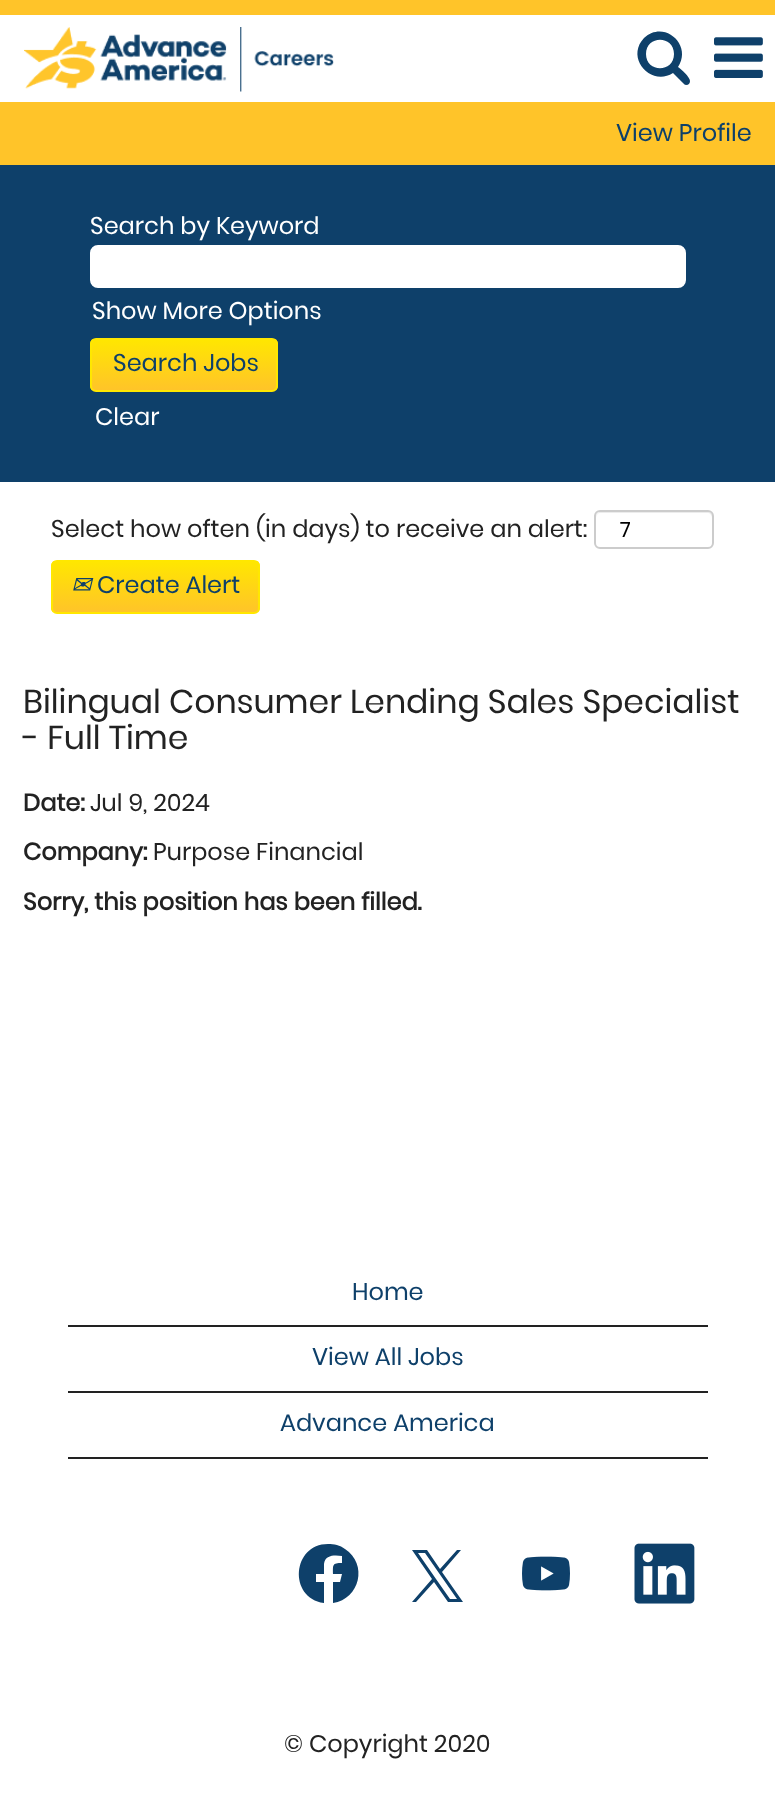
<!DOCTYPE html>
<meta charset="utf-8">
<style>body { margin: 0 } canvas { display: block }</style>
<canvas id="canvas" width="775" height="1804"></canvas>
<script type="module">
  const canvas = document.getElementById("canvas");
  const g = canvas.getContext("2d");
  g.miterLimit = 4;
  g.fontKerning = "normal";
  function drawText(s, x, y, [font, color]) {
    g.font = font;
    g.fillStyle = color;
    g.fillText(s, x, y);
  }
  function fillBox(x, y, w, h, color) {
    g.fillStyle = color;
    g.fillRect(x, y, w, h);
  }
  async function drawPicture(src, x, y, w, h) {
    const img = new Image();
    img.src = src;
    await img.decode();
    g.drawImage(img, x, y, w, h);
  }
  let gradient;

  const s1 = ["24px Poppins", "#0E406A"];
  const s2 = ["24px Poppins", "#FFFFFF"];
  const s3 = ["24px Poppins", "#222222"];
  const s4 = ["21px Poppins", "#000000"];
  const s5 = ["italic 24px DejaVu Sans", "#0E406A"];
  const s6 = ["33px Poppins", "#222222"];
  const s7 = ["bold 24px Poppins", "#222222"];

  fillBox(0, 0, 775, 1804, "#FFFFFF");
  fillBox(0, 0, 775, 15, "#FFC429");
  await drawPicture("pic1.png", 24, 27, 310, 65);
  g.fillStyle = "#0E406A";
  g.beginPath();
  g.moveTo(674, 54);
  g.bezierCurveTo(674, 73, 646, 73, 646, 54);
  g.bezierCurveTo(646, 35, 674, 35, 674, 54);
  g.closePath();
  g.moveTo(690, 81);
  g.bezierCurveTo(690, 77, 681, 69, 678, 67);
  g.bezierCurveTo(693, 45, 664, 19, 644, 38);
  g.bezierCurveTo(625, 58, 651, 87, 673, 73);
  g.lineTo(683, 83);
  g.bezierCurveTo(684, 84, 685, 85, 686, 85);
  g.bezierCurveTo(689, 85, 690, 83, 690, 81);
  g.closePath();
  g.fill();
  await drawPicture("pic2.png", 714, 37, 49, 41);
  fillBox(0, 102, 775, 63, "#FFC429");
  drawText("View Profile", 616, 141, s1);
  fillBox(0, 165, 775, 317, "#0E406A");
  drawText("Search by Keyword", 90, 234, s2);
  g.beginPath();
  g.roundRect(91.5, 246.5, 593, 40, 6.5);
  g.fill();
  g.strokeStyle = "#FFFFFF";
  g.lineWidth = 3;
  g.stroke();
  drawText("Show More Options", 92, 319, s2);
  g.save();
  g.beginPath();
  g.roundRect(90, 338, 188, 54, 6);
  g.clip();
  gradient = g.createLinearGradient(184, 339, 184, 390);
  gradient.addColorStop(0, "#FFE700");
  gradient.addColorStop(1, "#FFC429");
  g.fillStyle = gradient;
  g.fillRect(90, 339, 188, 51);
  g.restore();
  g.beginPath();
  g.roundRect(91, 339, 186, 52, 5);
  g.strokeStyle = "#FFE700";
  g.lineWidth = 2;
  g.stroke();
  drawText("Search Jobs", 113, 371, s1);
  drawText("Clear", 95, 425, s2);
  drawText("Select how often (in days) to receive an alert:", 51, 537, s3);
  g.fillStyle = "#ECECEC";
  g.beginPath();
  g.moveTo(600, 513);
  g.lineTo(708, 513);
  g.bezierCurveTo(710, 513, 712, 515, 712, 518);
  g.lineTo(712, 544);
  g.lineTo(711, 547);
  g.bezierCurveTo(712, 546, 713, 544, 713, 543);
  g.lineTo(713, 517);
  g.bezierCurveTo(713, 514, 711, 512, 708, 512);
  g.lineTo(601, 512);
  g.bezierCurveTo(598, 512, 596, 514, 596, 517);
  g.lineTo(596, 518);
  g.bezierCurveTo(596, 515, 598, 513, 600, 513);
  g.closePath();
  g.fill();
  g.beginPath();
  g.roundRect(595, 511, 118, 37, 5);
  g.strokeStyle = "#CCCCCC";
  g.stroke();
  drawText("7", 620, 537, s4);
  g.save();
  g.beginPath();
  g.roundRect(51, 560, 209, 54, 6);
  g.clip();
  gradient = g.createLinearGradient(155, 561, 155, 612);
  gradient.addColorStop(0, "#FFE700");
  gradient.addColorStop(1, "#FFC429");
  g.fillStyle = gradient;
  g.fillRect(51, 561, 209, 51);
  g.restore();
  g.beginPath();
  g.roundRect(52, 561, 207, 52, 5);
  g.strokeStyle = "#FFE700";
  g.stroke();
  drawText("✉", 71, 593, s5);
  drawText("Create Alert", 97, 593, s1);
  drawText("Bilingual Consumer Lending Sales Specialist", 23, 713, s6);
  drawText("- Full Time", 23, 749, s6);
  drawText("Date:", 23, 811, s7);
  drawText("Jul 9, 2024", 90, 811, s3);
  drawText("Company:", 23, 860, s7);
  drawText("Purpose Financial", 153, 860, s3);
  drawText("Sorry, this position has been filled.", 23, 910, s7);
  fillBox(68, 1325, 640, 2, "#222222");
  drawText("Home", 352, 1300, s1);
  fillBox(68, 1391, 640, 2, "#222222");
  drawText("View All Jobs", 312, 1365, s1);
  fillBox(68, 1457, 640, 2, "#222222");
  drawText("Advance America", 280, 1431, s1);
  g.beginPath();
  g.moveTo(328, 1544);
  g.bezierCurveTo(292, 1544, 288, 1598, 324, 1603);
  g.lineTo(324, 1582);
  g.lineTo(316, 1582);
  g.lineTo(316, 1574);
  g.lineTo(324, 1574);
  g.lineTo(324, 1564);
  g.bezierCurveTo(325, 1555, 334, 1555, 342, 1556);
  g.lineTo(342, 1563);
  g.bezierCurveTo(332, 1563, 333, 1565, 333, 1574);
  g.lineTo(342, 1574);
  g.lineTo(340, 1582);
  g.lineTo(333, 1582);
  g.lineTo(333, 1603);
  g.bezierCurveTo(360, 1599, 368, 1564, 345, 1549);
  g.bezierCurveTo(340, 1545, 334, 1544, 328, 1544);
  g.closePath();
  g.fill();
  g.beginPath();
  g.moveTo(442, 1572);
  g.lineTo(461, 1550);
  g.lineTo(457, 1550);
  g.lineTo(440, 1569);
  g.lineTo(427, 1550);
  g.lineTo(412, 1550);
  g.lineTo(432, 1579);
  g.lineTo(412, 1602);
  g.lineTo(416, 1602);
  g.lineTo(434, 1582);
  g.lineTo(448, 1602);
  g.lineTo(463, 1602);
  g.closePath();
  g.moveTo(436, 1579);
  g.lineTo(418, 1553);
  g.lineTo(425, 1553);
  g.lineTo(457, 1599);
  g.lineTo(450, 1599);
  g.closePath();
  g.fill();
  await drawPicture("pic3.png", 522, 1556, 48, 35);
  await drawPicture("pic4.png", 634, 1543, 61, 61);
  drawText("© Copyright 2020", 284, 1752, s3);
</script>
